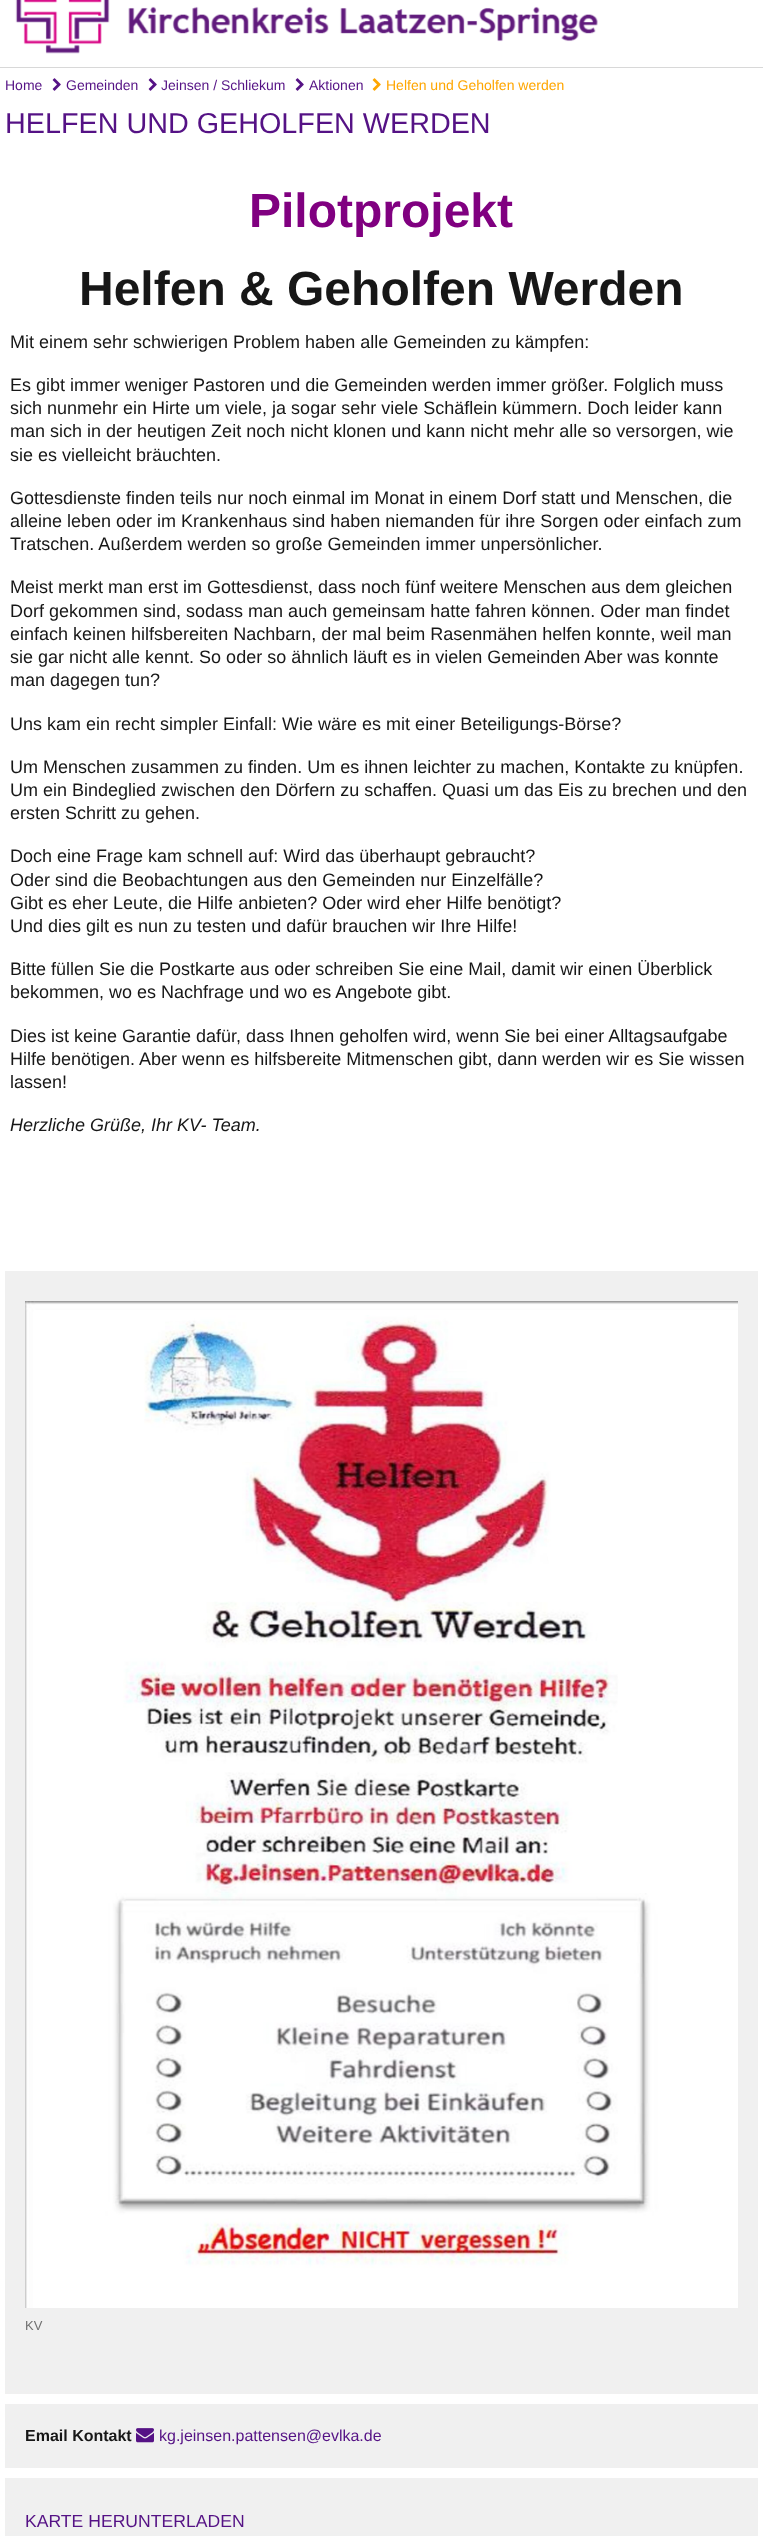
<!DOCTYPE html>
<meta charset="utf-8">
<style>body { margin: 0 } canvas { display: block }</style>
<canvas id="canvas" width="763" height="2536"></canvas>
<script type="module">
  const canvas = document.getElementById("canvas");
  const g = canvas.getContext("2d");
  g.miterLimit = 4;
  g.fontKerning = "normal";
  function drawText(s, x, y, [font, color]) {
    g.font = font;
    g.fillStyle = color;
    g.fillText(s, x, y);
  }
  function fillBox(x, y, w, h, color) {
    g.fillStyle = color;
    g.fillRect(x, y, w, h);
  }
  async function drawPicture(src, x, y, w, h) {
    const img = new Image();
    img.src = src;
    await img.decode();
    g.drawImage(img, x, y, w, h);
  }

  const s1 = ["14px Liberation Sans", "#551285"];
  const s2 = ["14px Liberation Sans", "#FFA600"];
  const s3 = ["28.75px Liberation Sans", "#551285"];
  const s4 = ["bold 48px Liberation Sans", "#800080"];
  const s5 = ["bold 48px Liberation Sans", "#171717"];
  const s6 = ["18px Liberation Sans", "#171717"];
  const s7 = ["italic 18px Liberation Sans", "#171717"];
  const s8 = ["13px Liberation Sans", "#717171"];
  const s9 = ["bold 16px Liberation Sans", "#171717"];
  const s10 = ["16px Liberation Sans", "#551285"];
  const s11 = ["17.6px Liberation Sans", "#551285"];

  fillBox(0, 0, 763, 2536, "#FFFFFF");
  fillBox(0, 67, 763, 1, "#D8D8D8");
  await drawPicture("pic1.png", 15, 0, 583, 54);
  drawText("Home", 5, 90, s1);
  await drawPicture("pic2.png", 52, 78, 9, 13);
  drawText("Gemeinden", 66, 90, s1);
  await drawPicture("pic2.png", 148, 78, 9, 13);
  drawText("Jeinsen / Schliekum", 161, 90, s1);
  await drawPicture("pic2.png", 295, 78, 9, 13);
  drawText("Aktionen", 309, 90, s1);
  await drawPicture("pic3.png", 372, 78, 9, 13);
  drawText("Helfen und Geholfen werden", 386, 90, s2);
  drawText("HELFEN UND GEHOLFEN WERDEN", 5, 133, s3);
  drawText("Pilotprojekt", 249, 227, s4);
  drawText("Helfen & Geholfen Werden", 79, 305, s5);
  drawText("Mit einem sehr schwierigen Problem haben alle Gemeinden zu kämpfen:", 10, 348, s6);
  drawText("Es gibt immer weniger Pastoren und die Gemeinden werden immer größer. Folglich muss", 10, 391, s6);
  drawText("sich nunmehr ein Hirte um viele, ja sogar sehr viele Schäflein kümmern. Doch leider kann", 10, 414, s6);
  drawText("man sich in der heutigen Zeit noch nicht klonen und kann nicht mehr alle so versorgen, wie", 10, 437, s6);
  drawText("sie es vielleicht bräuchten.", 10, 461, s6);
  drawText("Gottesdienste finden teils nur noch einmal im Monat in einem Dorf statt und Menschen, die", 10, 504, s6);
  drawText("alleine leben oder im Krankenhaus sind haben niemanden für ihre Sorgen oder einfach zum", 10, 527, s6);
  drawText("Tratschen. Außerdem werden so große Gemeinden immer unpersönlicher.", 10, 550, s6);
  drawText("Meist merkt man erst im Gottesdienst, dass noch fünf weitere Menschen aus dem gleichen", 10, 593, s6);
  drawText("Dorf gekommen sind, sodass man auch gemeinsam hatte fahren können. Oder man ﬁndet", 10, 617, s6);
  drawText("einfach keinen hilfsbereiten Nachbarn, der mal beim Rasenmähen helfen konnte, weil man", 10, 640, s6);
  drawText("sie gar nicht alle kennt. So oder so ähnlich läuft es in vielen Gemeinden Aber was konnte", 10, 663, s6);
  drawText("man dagegen tun?", 10, 686, s6);
  drawText("Uns kam ein recht simpler Einfall: Wie wäre es mit einer Beteiligungs-Börse?", 10, 730, s6);
  drawText("Um Menschen zusammen zu ﬁnden. Um es ihnen leichter zu machen, Kontakte zu knüpfen.", 10, 773, s6);
  drawText("Um ein Bindeglied zwischen den Dörfern zu schaffen. Quasi um das Eis zu brechen und den", 10, 796, s6);
  drawText("ersten Schritt zu gehen.", 10, 819, s6);
  drawText("Doch eine Frage kam schnell auf: Wird das überhaupt gebraucht?", 10, 862, s6);
  drawText("Oder sind die Beobachtungen aus den Gemeinden nur Einzelfälle?", 10, 886, s6);
  drawText("Gibt es eher Leute, die Hilfe anbieten? Oder wird eher Hilfe benötigt?", 10, 909, s6);
  drawText("Und dies gilt es nun zu testen und dafür brauchen wir Ihre Hilfe!", 10, 932, s6);
  drawText("Bitte füllen Sie die Postkarte aus oder schreiben Sie eine Mail, damit wir einen Überblick", 10, 975, s6);
  drawText("bekommen, wo es Nachfrage und wo es Angebote gibt.", 10, 998, s6);
  drawText("Dies ist keine Garantie dafür, dass Ihnen geholfen wird, wenn Sie bei einer Alltagsaufgabe", 10, 1042, s6);
  drawText("Hilfe benötigen. Aber wenn es hilfsbereite Mitmenschen gibt, dann werden wir es Sie wissen", 10, 1065, s6);
  drawText("lassen!", 10, 1088, s6);
  drawText("Herzliche Grüße, Ihr KV- Team.", 10, 1131, s7);
  fillBox(5, 1271, 753, 1123, "#F0F0F0");
  await drawPicture("pic4.png", 25, 1301, 713, 1007);
  drawText("KV", 25, 2330, s8);
  fillBox(5, 2404, 753, 64, "#F0F0F0");
  drawText("Email Kontakt", 25, 2441, s9);
  await drawPicture("pic5.png", 136, 2428, 18, 15);
  drawText("kg.jeinsen.pattensen@evlka.de", 159, 2441, s10);
  fillBox(5, 2478, 753, 58, "#F0F0F0");
  drawText("KARTE HERUNTERLADEN", 25, 2527, s11);
</script>
